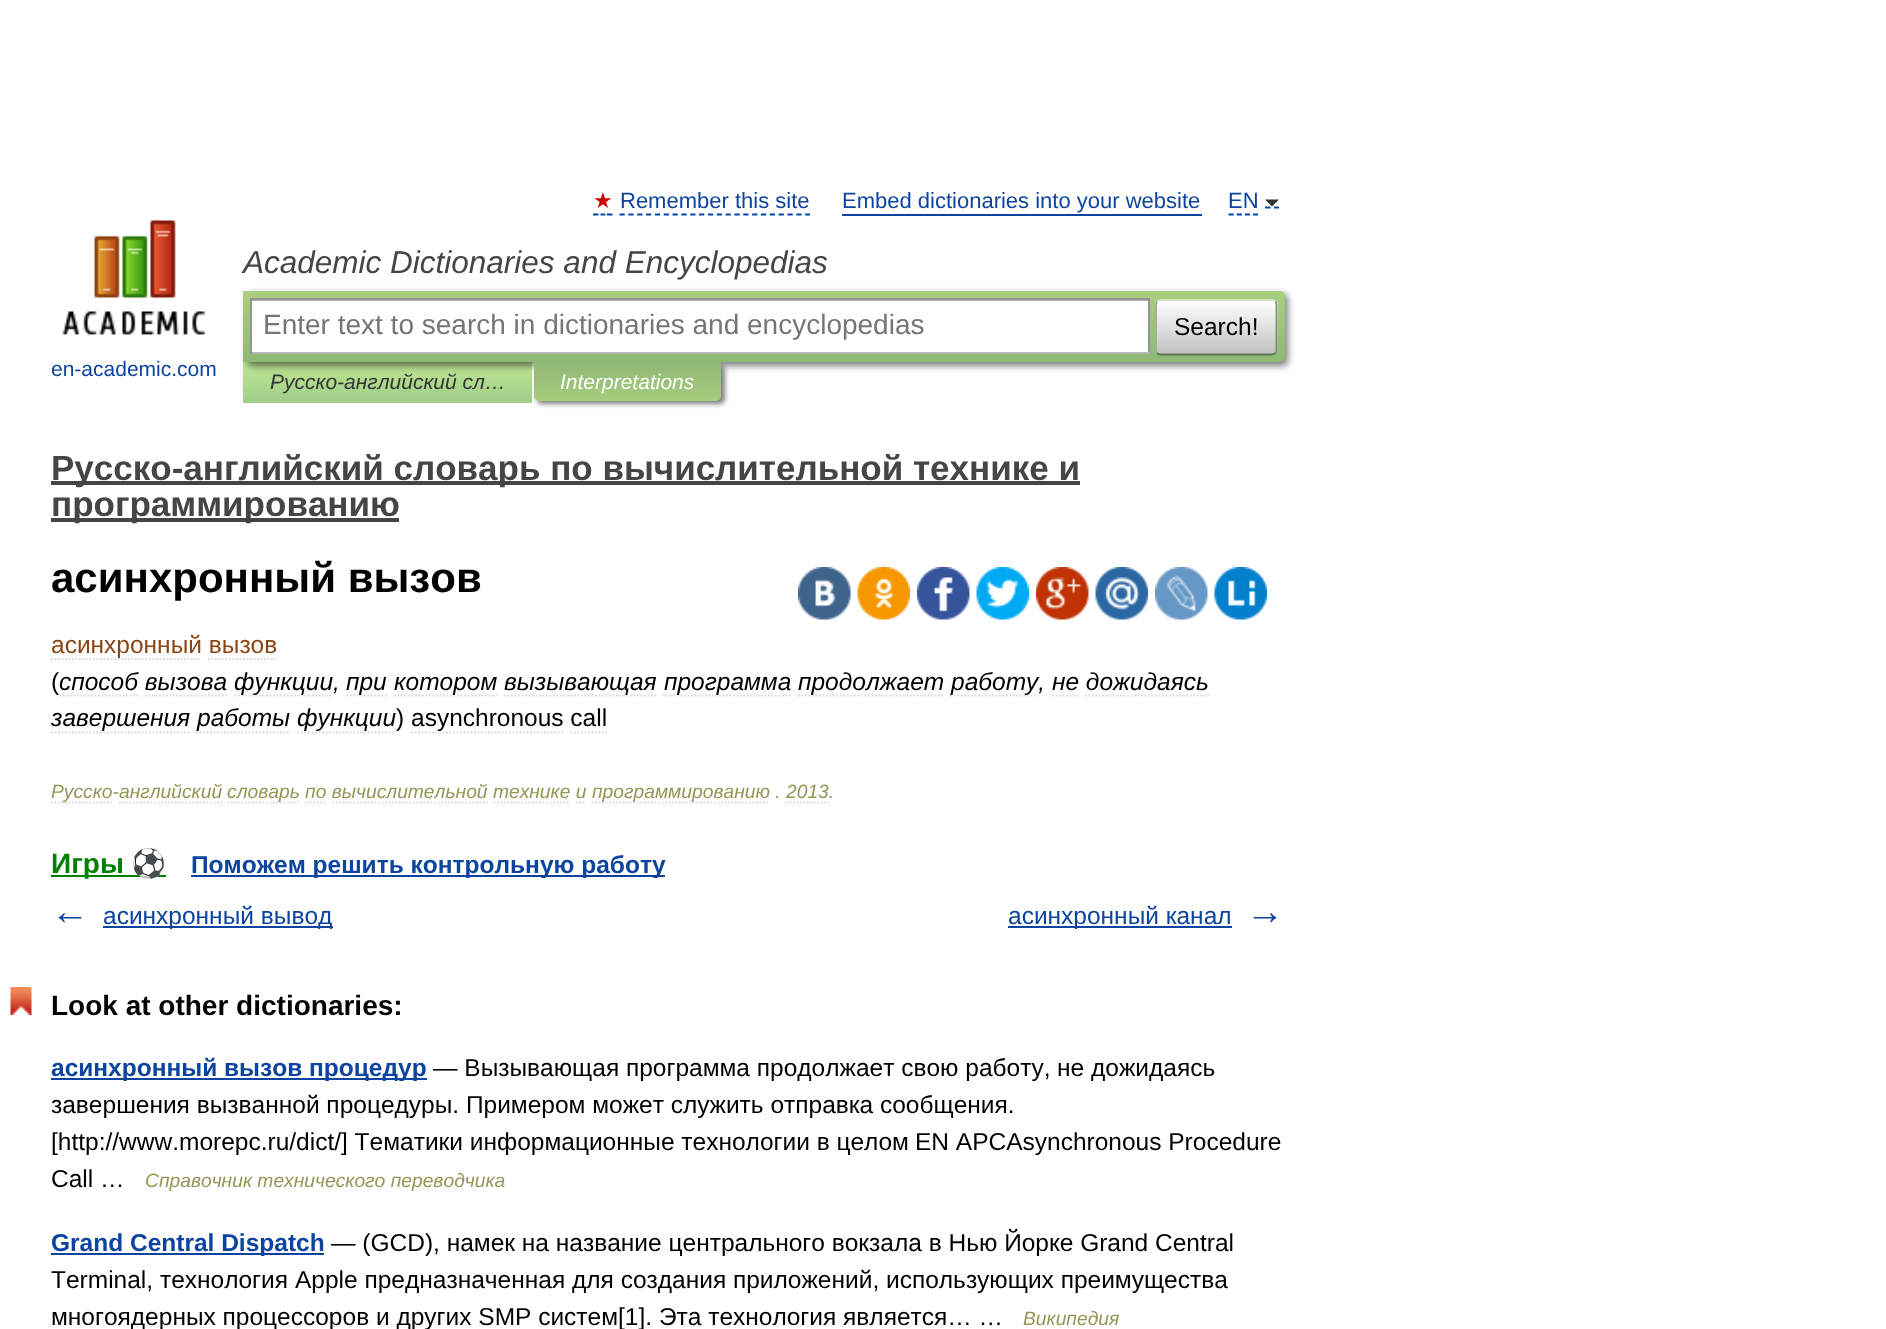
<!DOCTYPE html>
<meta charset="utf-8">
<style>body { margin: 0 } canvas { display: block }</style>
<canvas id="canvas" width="1886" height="1329"></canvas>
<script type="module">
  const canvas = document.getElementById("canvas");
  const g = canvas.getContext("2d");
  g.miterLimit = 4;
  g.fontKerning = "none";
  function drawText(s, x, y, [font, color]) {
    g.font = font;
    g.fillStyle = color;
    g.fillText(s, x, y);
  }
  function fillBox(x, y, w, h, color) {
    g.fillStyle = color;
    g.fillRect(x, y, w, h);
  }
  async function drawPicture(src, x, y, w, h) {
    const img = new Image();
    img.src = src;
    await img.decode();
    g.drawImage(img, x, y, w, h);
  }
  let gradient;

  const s1 = ["22px DejaVu Sans", "#CC0000"];
  const s2 = ["22px Liberation Sans", "#0D44A0"];
  const s3 = ["italic 31.5px Liberation Sans", "#454545"];
  const s4 = ["28px Liberation Sans", "#757575"];
  const s5 = ["24.5px Liberation Sans", "#000000"];
  const s6 = ["21px Liberation Sans", "#0D44A0"];
  const s7 = ["italic 21px Liberation Sans", "#353535"];
  const s8 = ["italic 21px Liberation Sans", "#FFFFFF"];
  const s9 = ["bold 35px Liberation Sans", "#454545"];
  const s10 = ["bold 42px Liberation Sans", "#000000"];
  const s11 = ["24.5px Liberation Sans", "#8B4513"];
  const s12 = ["italic 24.5px Liberation Sans", "#000000"];
  const s13 = ["italic 19.25px Liberation Sans", "#939756"];
  const s14 = ["bold 28px Liberation Sans", "#008000"];
  const s15 = ["bold 28px Noto Color Emoji", "#008000"];
  const s16 = ["bold 24.5px Liberation Sans", "#0D44A0"];
  const s17 = ["bold 38px Liberation Sans", "#0D44A0"];
  const s18 = ["24.5px Liberation Sans", "#0D44A0"];
  const s19 = ["bold 28px Liberation Sans", "#000000"];

  fillBox(0, 0, 1886, 1329, "#FFFFFF");
  drawText("★", 593, 208, s1);
  g.beginPath();
  g.moveTo(593, 214.5);
  g.lineTo(598.5, 214.5);
  g.moveTo(600.5, 214.5);
  g.lineTo(605.5, 214.5);
  g.moveTo(607, 214.5);
  g.lineTo(612.5, 214.5);
  g.strokeStyle = "#0044AA";
  g.lineWidth = 1.8;
  g.stroke();
  drawText("Remember this site", 620, 208, s2);
  g.beginPath();
  g.moveTo(619.5, 214.5);
  g.lineTo(810, 214.5);
  g.setLineDash([5.25, 3.59]);
  g.stroke();
  drawText("Embed dictionaries into your website", 842, 208, s2);
  fillBox(842, 214, 360, 2, "#0D44A0");
  g.beginPath();
  g.moveTo(1228.5, 214.5);
  g.lineTo(1258, 214.5);
  g.setLineDash([5.25, 2.92]);
  g.stroke();
  g.beginPath();
  g.moveTo(1265, 207.5);
  g.lineTo(1270.5, 207.5);
  g.moveTo(1274, 207.5);
  g.lineTo(1279, 207.5);
  g.setLineDash([]);
  g.stroke();
  drawText("EN", 1228, 208, s2);
  g.fillStyle = "#333333";
  g.beginPath();
  g.moveTo(1265, 199.5);
  g.lineTo(1279, 199.5);
  g.lineTo(1272, 206.5);
  g.closePath();
  g.fill();
  drawText("Academic Dictionaries and Encyclopedias", 243, 273, s3);
  gradient = g.createLinearGradient(388, 362, 388, 403);
  gradient.addColorStop(0, "#BDE693");
  gradient.addColorStop(1, "#A0CE8A");
  g.fillStyle = gradient;
  g.fillRect(243, 362, 289, 41);
  g.fillStyle = "rgba(0, 0, 0, 0.5)";
  g.filter = "blur(3.5px)";
  g.beginPath();
  g.roundRect(247, 294, 1041, 72, 5);
  g.fill();
  g.filter = "none";
  gradient = g.createLinearGradient(764, 290, 764, 362);
  gradient.addColorStop(0, "#ABCF7E");
  gradient.addColorStop(1, "#8EB874");
  g.fillStyle = gradient;
  g.beginPath();
  g.roundRect(243, 291, 1042, 71, [0, 5, 5, 0]);
  g.fill();
  fillBox(252, 301, 896, 51, "#FFFFFF");
  fillBox(252, 300, 896, 1, "#B3B3B3");
  fillBox(250, 298, 900, 2, "#949494");
  fillBox(1148, 298, 2, 56, "#949494");
  fillBox(250, 352, 900, 2, "#B4B4B4");
  fillBox(250, 298, 2, 56, "#949494");
  drawText("Enter text to search in dictionaries and encyclopedias", 263, 334, s4);
  g.save();
  g.beginPath();
  g.roundRect(1155, 299, 123, 56, 5);
  g.clip();
  gradient = g.createLinearGradient(1216, 249, 1216, 301);
  gradient.addColorStop(0, "#FFFFFF");
  gradient.addColorStop(1, "#C1C1C1");
  g.fillStyle = gradient;
  g.fillRect(1155, 299, 123, 2);
  gradient = g.createLinearGradient(1216, 301, 1216, 354);
  gradient.addColorStop(0, "#FFFFFF");
  gradient.addColorStop(1, "#C1C1C1");
  g.fillStyle = gradient;
  g.fillRect(1155, 301, 123, 53);
  g.restore();
  g.beginPath();
  g.moveTo(1157, 301.5);
  g.bezierCurveTo(1158, 300.5, 1159, 300, 1160, 300);
  g.lineTo(1272, 300);
  g.bezierCurveTo(1273.5, 300, 1274.5, 300.5, 1275.5, 301.5);
  g.strokeStyle = "#D1E4BC";
  g.stroke();
  g.beginPath();
  g.moveTo(1275.5, 301.5);
  g.bezierCurveTo(1276, 302, 1276.5, 303.5, 1276.5, 304.5);
  g.lineTo(1276.5, 350);
  g.bezierCurveTo(1276.5, 351, 1276, 352.5, 1275.5, 353);
  g.strokeStyle = "#7A8E69";
  g.stroke();
  g.beginPath();
  g.moveTo(1275.5, 353);
  g.bezierCurveTo(1274.5, 354, 1273.5, 354.5, 1272, 354.5);
  g.lineTo(1160, 354.5);
  g.bezierCurveTo(1159, 354.5, 1158, 354, 1157, 353);
  g.strokeStyle = "#5D7250";
  g.stroke();
  g.beginPath();
  g.moveTo(1157, 353);
  g.bezierCurveTo(1156.5, 352.5, 1156, 351, 1156, 350);
  g.lineTo(1156, 304.5);
  g.bezierCurveTo(1156, 303.5, 1156.5, 302, 1157, 301.5);
  g.strokeStyle = "#9AAE89";
  g.stroke();
  drawText("Search!", 1174, 335, s5);
  await drawPicture("pic1.png", 62, 220, 144, 115);
  drawText("en-academic.com", 51, 376, s6);
  drawText("Русско-английский сл…", 270, 389, s7);
  g.fillStyle = "rgba(0, 0, 0, 0.5)";
  g.filter = "blur(2.5px)";
  g.beginPath();
  g.roundRect(537, 366, 188, 38, 5);
  g.fill();
  g.filter = "none";
  gradient = g.createLinearGradient(627, 362, 627, 401);
  gradient.addColorStop(0, "#8FB875");
  gradient.addColorStop(1, "#A7CC7D");
  g.fillStyle = gradient;
  g.beginPath();
  g.roundRect(534, 362, 187, 39, [0, 0, 5, 5]);
  g.fill();
  drawText("Interpretations", 560, 389, s8);
  fillBox(51, 481, 1029, 4, "#454545");
  drawText("Русско-английский словарь по вычислительной технике и", 51, 480, s9);
  fillBox(51, 518, 348, 4, "#454545");
  drawText("программированию", 51, 516, s9);
  drawText("асинхронный вызов", 51, 592, s10);
  await drawPicture("pic2.png", 798, 567, 53, 53);
  await drawPicture("pic3.png", 857, 567, 53, 53);
  await drawPicture("pic4.png", 917, 567, 53, 53);
  await drawPicture("pic5.png", 976, 567, 53, 53);
  await drawPicture("pic6.png", 1036, 567, 53, 53);
  await drawPicture("pic7.png", 1095, 567, 53, 53);
  await drawPicture("pic8.png", 1155, 567, 53, 53);
  await drawPicture("pic9.png", 1214, 567, 53, 53);
  g.beginPath();
  g.moveTo(51, 659);
  g.lineTo(201, 659);
  g.strokeStyle = "#D9D9D9";
  g.setLineDash([1.75, 1.75]);
  g.stroke();
  drawText("асинхронный вызов", 51, 653, s11);
  g.beginPath();
  g.moveTo(208, 659);
  g.lineTo(276.5, 659);
  g.stroke();
  drawText("(", 51, 690, s5);
  g.beginPath();
  g.moveTo(59.5, 695.5);
  g.lineTo(138, 695.5);
  g.stroke();
  drawText("способ вызова", 59, 690, s12);
  g.beginPath();
  g.moveTo(145, 695.5);
  g.lineTo(227.5, 695.5);
  g.stroke();
  g.beginPath();
  g.moveTo(234.5, 695.5);
  g.lineTo(332.5, 695.5);
  g.stroke();
  drawText("функции,", 234, 690, s12);
  g.beginPath();
  g.moveTo(346.5, 695.5);
  g.lineTo(387, 695.5);
  g.stroke();
  drawText("при", 346, 690, s12);
  g.beginPath();
  g.moveTo(394, 695.5);
  g.lineTo(497, 695.5);
  g.stroke();
  drawText("котором", 394, 690, s12);
  g.beginPath();
  g.moveTo(504, 695.5);
  g.lineTo(656, 695.5);
  g.stroke();
  drawText("вызывающая", 504, 690, s12);
  g.beginPath();
  g.moveTo(663, 695.5);
  g.lineTo(791, 695.5);
  g.stroke();
  drawText("программа", 664, 690, s12);
  g.beginPath();
  g.moveTo(798, 695.5);
  g.lineTo(943, 695.5);
  g.stroke();
  drawText("продолжает", 798, 690, s12);
  g.beginPath();
  g.moveTo(950, 695.5);
  g.lineTo(1038, 695.5);
  g.stroke();
  drawText("работу, не дожидаясь", 951, 690, s12);
  g.beginPath();
  g.moveTo(1052, 695.5);
  g.lineTo(1078, 695.5);
  g.stroke();
  g.beginPath();
  g.moveTo(1085, 695.5);
  g.lineTo(1209, 695.5);
  g.stroke();
  g.beginPath();
  g.moveTo(51, 732.5);
  g.lineTo(191, 732.5);
  g.stroke();
  drawText("завершения", 51, 726, s12);
  g.beginPath();
  g.moveTo(196, 732.5);
  g.lineTo(290.5, 732.5);
  g.stroke();
  drawText("работы", 197, 726, s12);
  g.beginPath();
  g.moveTo(297.5, 732.5);
  g.lineTo(395.5, 732.5);
  g.stroke();
  drawText("функции", 297, 726, s12);
  drawText(")", 396, 726, s5);
  g.beginPath();
  g.moveTo(411, 732.5);
  g.lineTo(563.5, 732.5);
  g.stroke();
  drawText("asynchronous call", 411, 726, s5);
  g.beginPath();
  g.moveTo(570.5, 732.5);
  g.lineTo(607, 732.5);
  g.stroke();
  g.beginPath();
  g.moveTo(51, 802.5);
  g.lineTo(112, 802.5);
  g.stroke();
  drawText("Русско-английский", 51, 798, s13);
  g.beginPath();
  g.moveTo(119, 802.5);
  g.lineTo(222, 802.5);
  g.stroke();
  g.beginPath();
  g.moveTo(227.5, 802.5);
  g.lineTo(299, 802.5);
  g.stroke();
  drawText("словарь по вычислительной технике и", 227, 798, s13);
  g.beginPath();
  g.moveTo(306, 802.5);
  g.lineTo(327, 802.5);
  g.stroke();
  g.beginPath();
  g.moveTo(332.5, 802.5);
  g.lineTo(488, 802.5);
  g.stroke();
  g.beginPath();
  g.moveTo(493.5, 802.5);
  g.lineTo(570.5, 802.5);
  g.stroke();
  g.beginPath();
  g.moveTo(576, 802.5);
  g.lineTo(577.5, 802.5);
  g.moveTo(579, 802.5);
  g.lineTo(581, 802.5);
  g.moveTo(582.5, 802.5);
  g.lineTo(584.5, 802.5);
  g.setLineDash([]);
  g.stroke();
  g.beginPath();
  g.moveTo(591.5, 802.5);
  g.lineTo(770, 802.5);
  g.setLineDash([1.75, 1.75]);
  g.stroke();
  drawText("программированию . 2013.", 592, 798, s13);
  g.beginPath();
  g.moveTo(786, 802.5);
  g.lineTo(829.5, 802.5);
  g.stroke();
  fillBox(51, 875, 115, 2, "#008000");
  drawText("Игры", 51, 873, s14);
  drawText("⚽", 131, 873, s15);
  fillBox(191, 875, 474, 2, "#0D44A0");
  drawText("Поможем решить контрольную работу", 191, 873, s16);
  drawText("←", 51, 924, s17);
  fillBox(103, 926, 230, 2, "#0D44A0");
  drawText("асинхронный вывод", 103, 924, s18);
  fillBox(1008, 926, 224, 2, "#0D44A0");
  drawText("асинхронный канал", 1008, 924, s18);
  drawText("→", 1246, 924, s17);
  await drawPicture("pic10.png", 10, 987, 22, 28);
  drawText("Look at other dictionaries:", 51, 1015, s19);
  fillBox(51, 1078, 376, 2, "#0D44A0");
  drawText("асинхронный вызов процедур", 51, 1076, s16);
  drawText("— Вызывающая программа продолжает свою работу,", 433, 1076, s5);
  drawText("не дожидаясь", 1057, 1076, s5);
  drawText("завершения вызванной процедуры. Примером может служить отправка сообщения.", 51, 1113, s5);
  drawText("[http://www.morepc.ru/dict/] Тематики информационные технологии в целом", 51, 1150, s5);
  drawText("EN APCAsynchronous Procedure", 915, 1150, s5);
  drawText("Call …", 51, 1187, s5);
  drawText("Справочник технического переводчика", 145, 1187, s13);
  fillBox(51, 1253, 273, 2, "#0D44A0");
  drawText("Grand Central Dispatch", 51, 1251, s16);
  drawText("— (GCD), намек на название центрального вокзала в Нью Йорке Grand Central", 331, 1251, s5);
  drawText("Terminal, технология", 51, 1288, s5);
  drawText("Apple предназначенная для создания приложений, использующих преимущества", 295, 1288, s5);
  drawText("многоядерных процессоров и других SMP систем[1]. Эта технология является… …", 51, 1325, s5);
  drawText("Википедия", 1023, 1325, s13);
</script>
